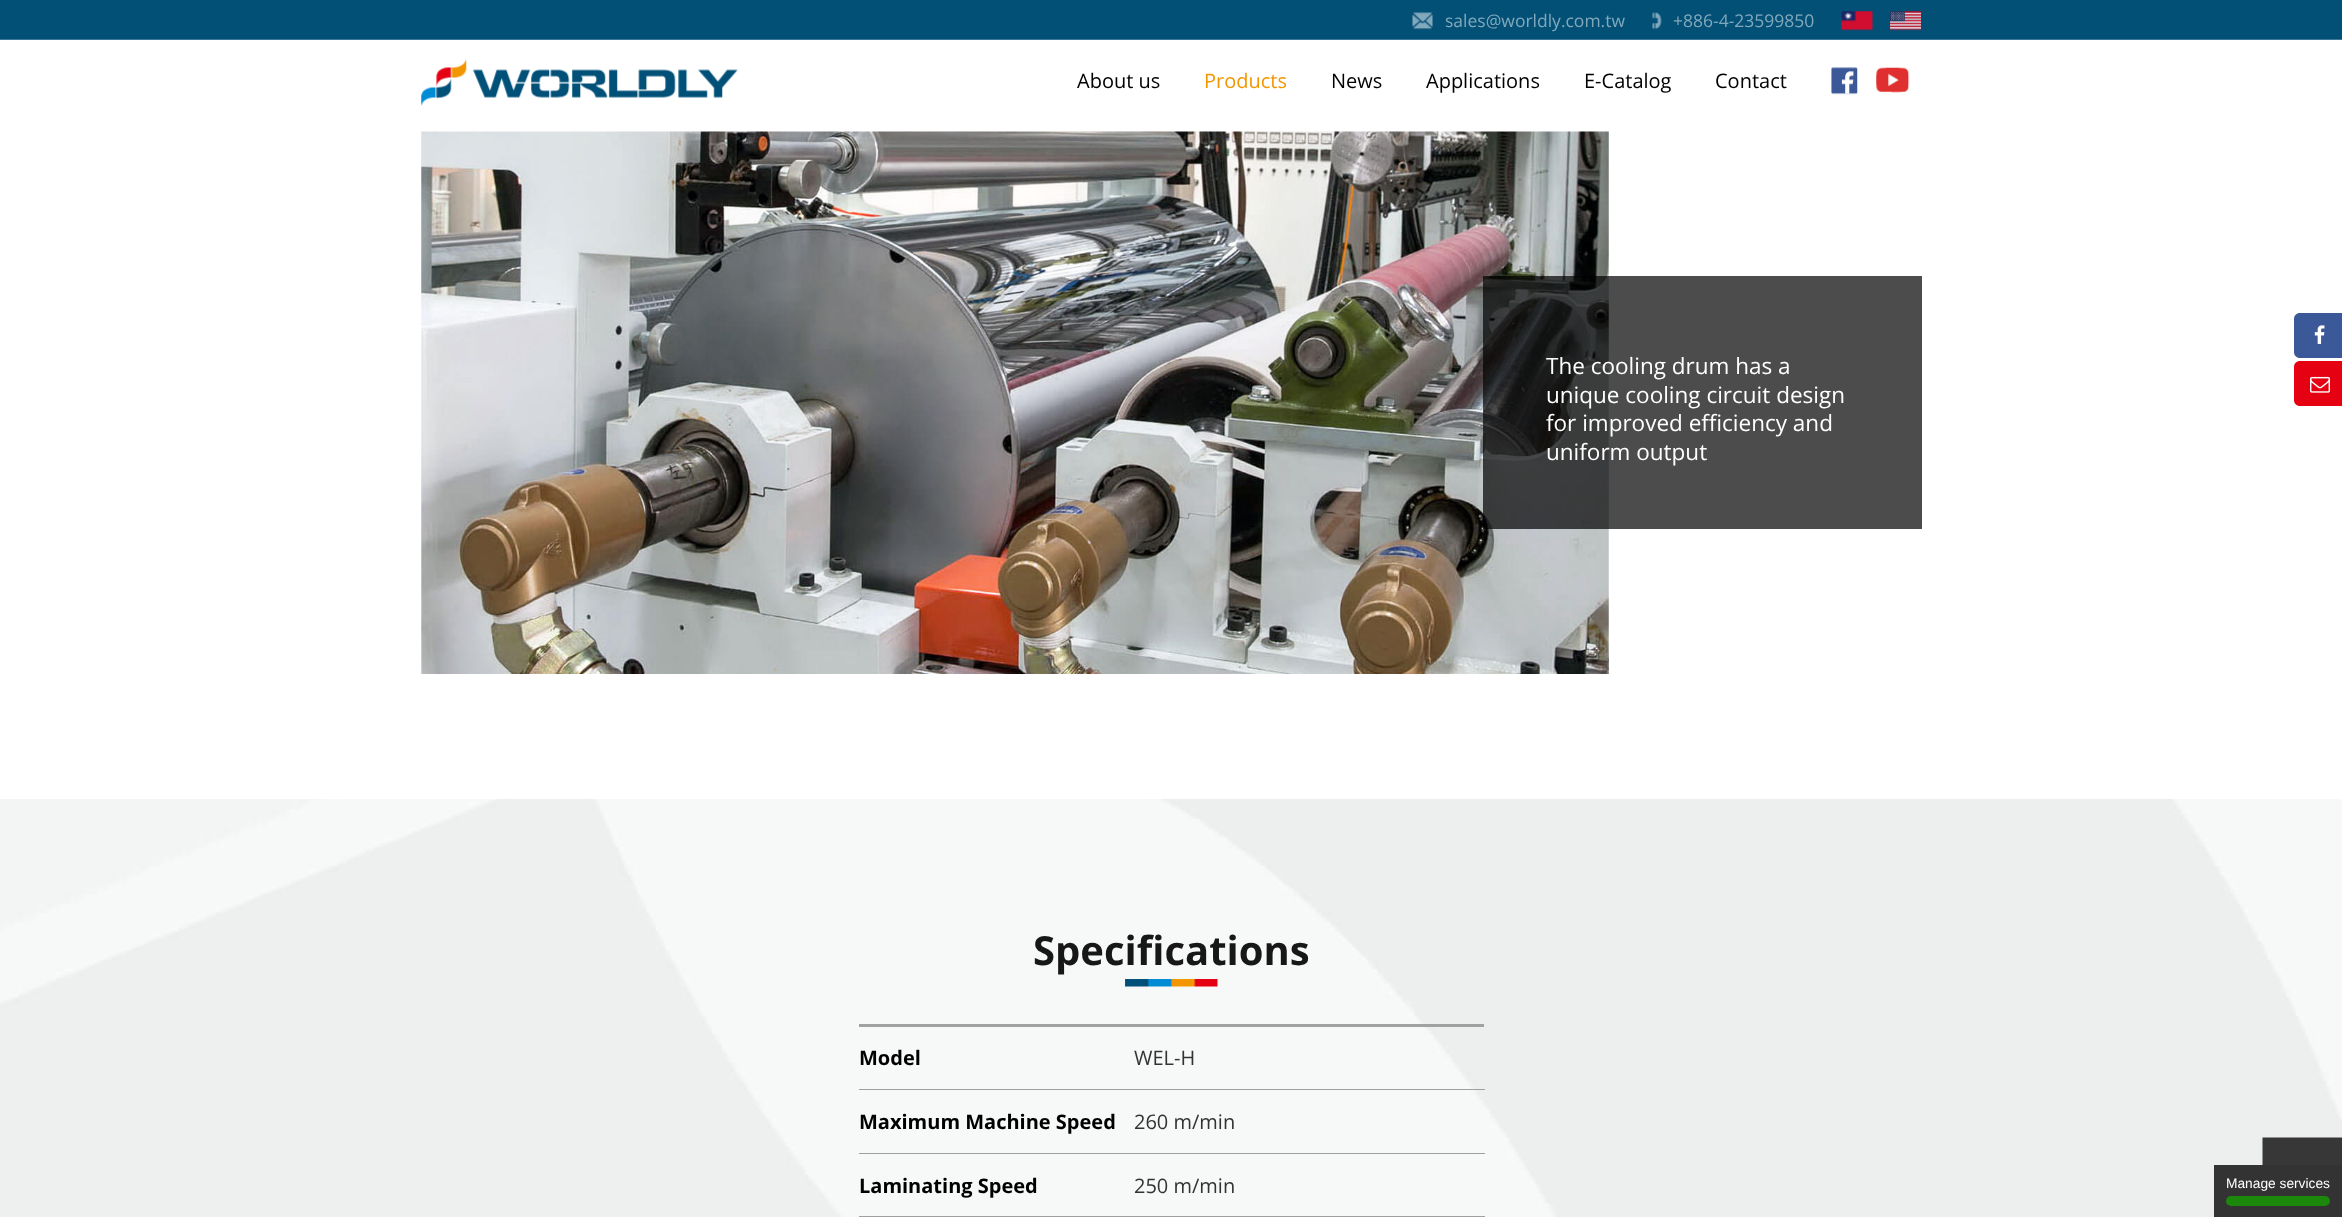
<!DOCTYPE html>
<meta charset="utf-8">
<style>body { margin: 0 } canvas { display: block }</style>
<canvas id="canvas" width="2342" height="1217"></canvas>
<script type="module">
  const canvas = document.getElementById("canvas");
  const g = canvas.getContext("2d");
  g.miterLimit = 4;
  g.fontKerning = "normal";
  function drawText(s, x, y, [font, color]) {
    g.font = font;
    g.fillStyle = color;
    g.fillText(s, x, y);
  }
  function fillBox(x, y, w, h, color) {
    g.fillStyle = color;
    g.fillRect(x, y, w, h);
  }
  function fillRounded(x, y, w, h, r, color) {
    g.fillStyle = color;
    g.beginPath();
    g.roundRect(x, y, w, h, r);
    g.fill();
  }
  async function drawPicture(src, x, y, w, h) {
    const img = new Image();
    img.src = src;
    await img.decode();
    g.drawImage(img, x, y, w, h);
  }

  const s1 = ["17.5px Open Sans", "#81A8BB"];
  const s2 = ["20px Open Sans", "#000000"];
  const s3 = ["20px Open Sans", "#F29600"];
  const s4 = ["22.5px Open Sans", "#FFFFFF"];
  const s5 = ["bold 40px Open Sans", "#171717"];
  const s6 = ["bold 20px Open Sans", "#000000"];
  const s7 = ["20px Open Sans", "#333333"];
  const s8 = ["13.75px Liberation Sans", "#FFFFFF"];

  fillBox(0, 0, 2342, 1217, "#FFFFFF");
  fillBox(0, 0, 2342, 39, "#035077");
  fillBox(0, 39, 2342, 1, "#3D7896");
  await drawPicture("pic1.png", 1412, 12, 21, 18);
  drawText("sales@worldly.com.tw", 1445, 27, s1);
  await drawPicture("pic2.png", 1652, 12, 10, 18);
  drawText("+886-4-23599850", 1673, 27, s1);
  await drawPicture("pic3.png", 1841, 11, 32, 20);
  await drawPicture("pic4.png", 1890, 11, 31, 20);
  await drawPicture("pic5.png", 421, 58, 317, 48);
  drawText("About us", 1077, 88, s2);
  drawText("Products", 1204, 88, s3);
  drawText("News", 1331, 88, s2);
  drawText("Applications", 1426, 88, s2);
  drawText("E-Catalog", 1584, 88, s2);
  drawText("Contact", 1715, 88, s2);
  await drawPicture("pic6.png", 1831, 67, 27, 28);
  await drawPicture("pic7.png", 1876, 67, 34, 26);
  await drawPicture("pic8.png", 421, 131, 1188, 543);
  fillBox(1483, 276, 439, 253, "rgba(0, 0, 0, 0.7)");
  drawText("The cooling drum has a", 1546, 374, s4);
  drawText("unique cooling circuit design", 1546, 403, s4);
  drawText("for improved efficiency and", 1546, 431, s4);
  drawText("uniform output", 1546, 460, s4);
  await drawPicture("pic9.png", 0, 799, 2342, 418);
  drawText("Specifications", 1033, 965, s5);
  await drawPicture("pic10.png", 1125, 979, 93, 8);
  fillBox(859, 1024, 625, 3, "#A0A1A0");
  drawText("Model", 859, 1065, s6);
  fillBox(859, 1089, 626, 1, "#A0A0A0");
  drawText("WEL-H", 1134, 1065, s7);
  drawText("Maximum Machine Speed", 859, 1129, s6);
  fillBox(859, 1153, 626, 1, "#A0A0A0");
  drawText("260 m/min", 1134, 1129, s7);
  drawText("Laminating Speed", 859, 1193, s6);
  fillBox(859, 1216, 626, 1, "#A0A0A0");
  drawText("250 m/min", 1134, 1193, s7);
  g.fillStyle = "#3B5998";
  g.beginPath();
  g.moveTo(2300, 313);
  g.lineTo(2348, 313);
  g.lineTo(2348, 358);
  g.lineTo(2300, 358);
  g.bezierCurveTo(2296.5, 358, 2294, 355.5, 2294, 352);
  g.lineTo(2294, 319);
  g.bezierCurveTo(2294, 315.5, 2296.5, 313, 2300, 313);
  g.closePath();
  g.fill();
  await drawPicture("pic11.png", 2314, 325, 11, 19);
  g.fillStyle = "#E50012";
  g.beginPath();
  g.moveTo(2300, 361);
  g.lineTo(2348, 361);
  g.lineTo(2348, 406);
  g.lineTo(2300, 406);
  g.bezierCurveTo(2296.5, 406, 2294, 403.5, 2294, 400);
  g.lineTo(2294, 367);
  g.bezierCurveTo(2294, 363.5, 2296.5, 361, 2300, 361);
  g.closePath();
  g.fill();
  await drawPicture("pic12.png", 2310, 376, 20, 17);
  await drawPicture("pic13.png", 2262, 1137, 80, 28);
  fillBox(2214, 1165, 128, 52, "#333333");
  drawText("Manage services", 2226, 1188, s8);
  fillRounded(2226, 1196, 104, 10, 5, "#1B870B");
</script>
